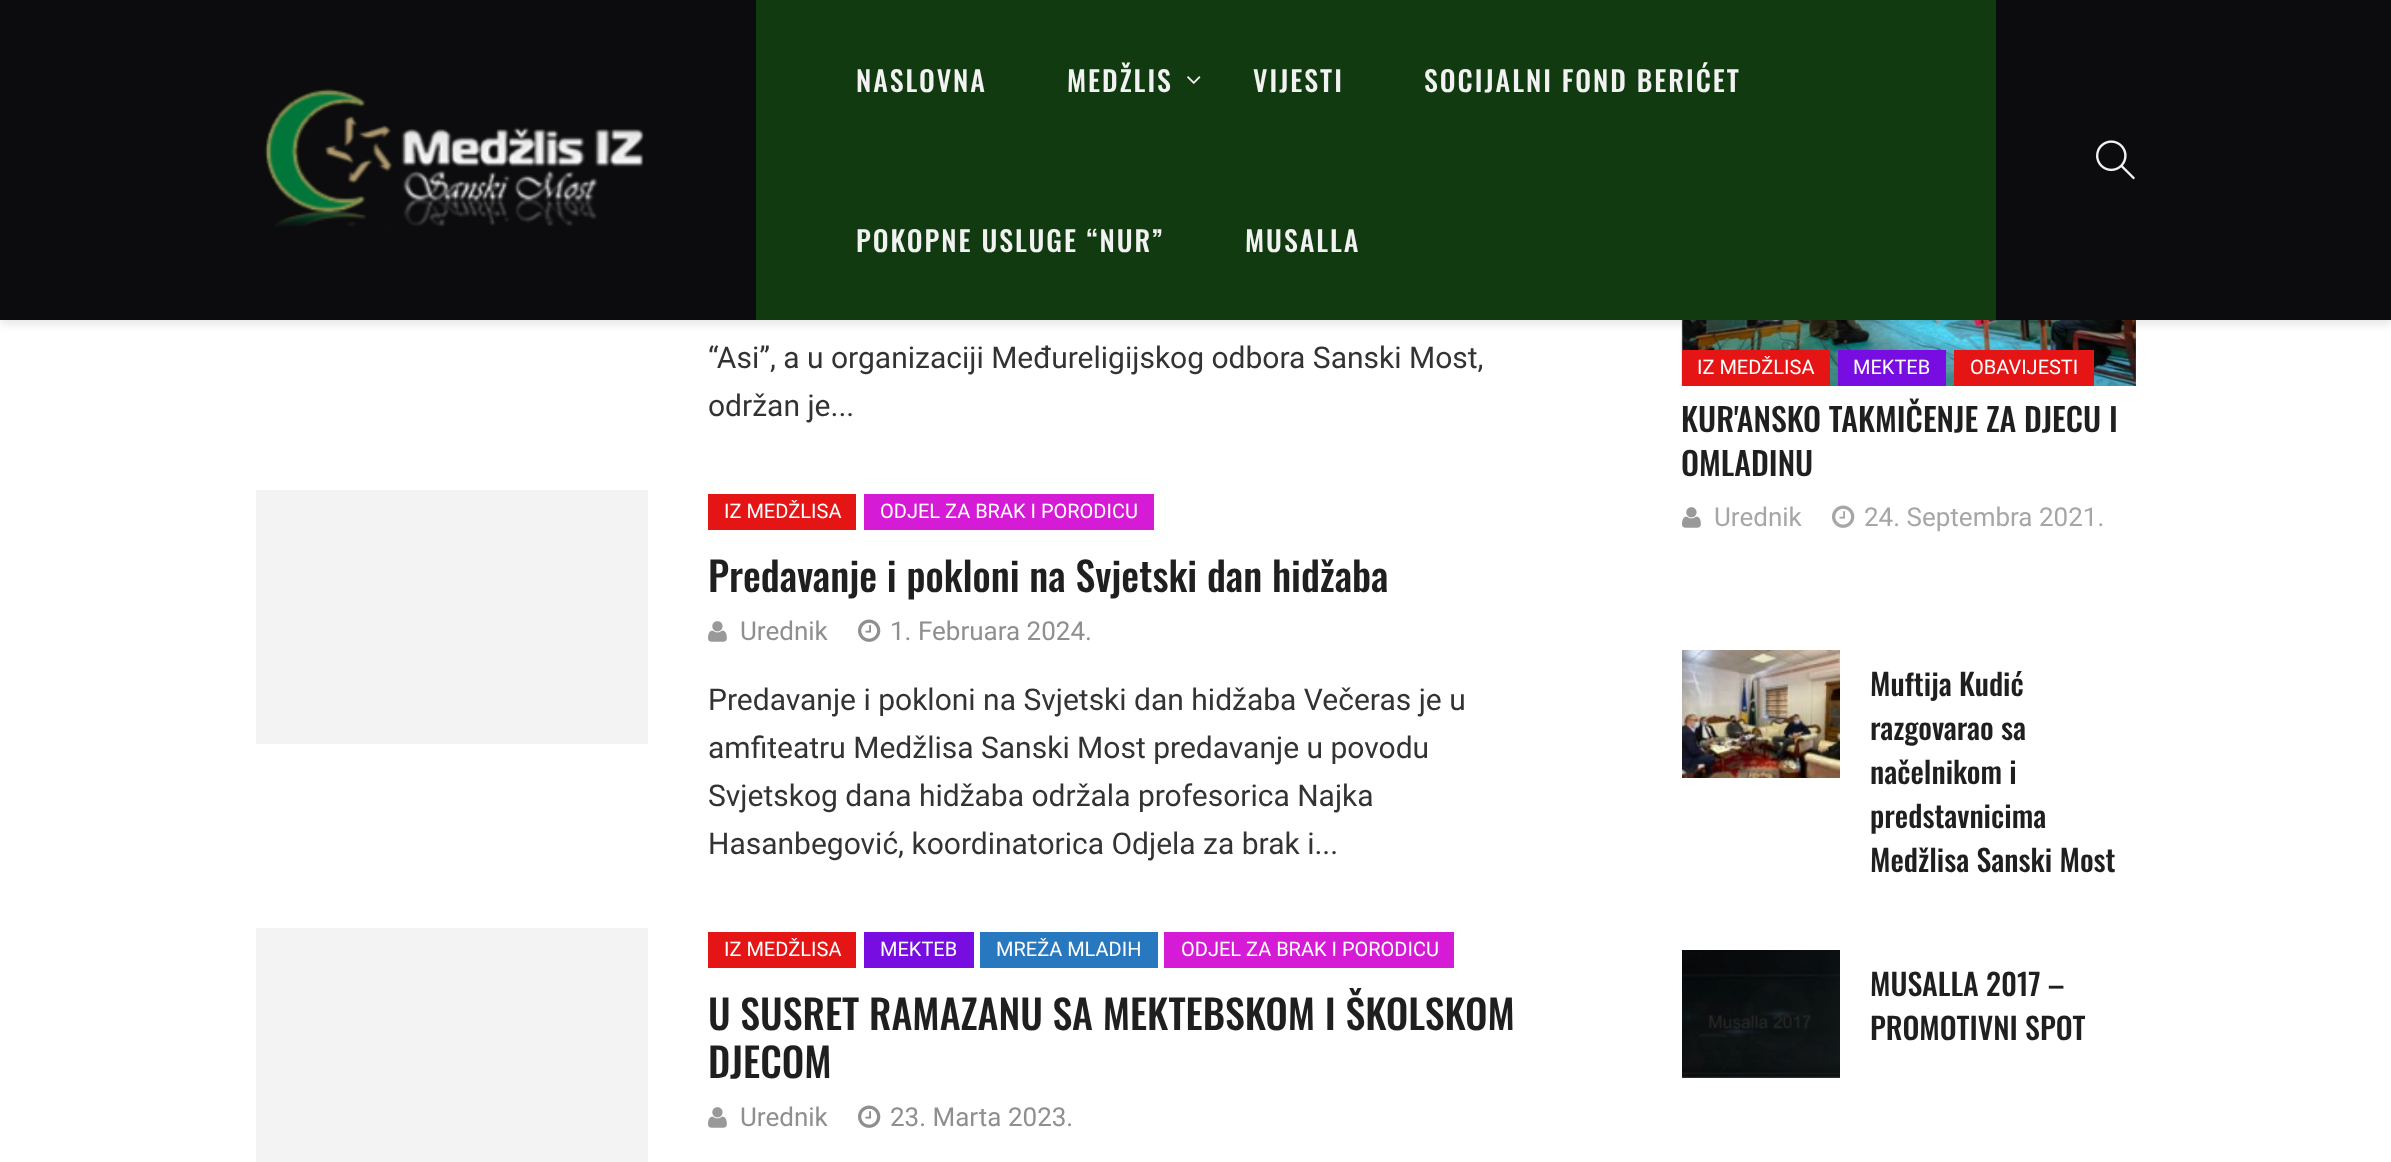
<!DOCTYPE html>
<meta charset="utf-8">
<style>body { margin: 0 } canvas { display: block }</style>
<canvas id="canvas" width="2391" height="1162"></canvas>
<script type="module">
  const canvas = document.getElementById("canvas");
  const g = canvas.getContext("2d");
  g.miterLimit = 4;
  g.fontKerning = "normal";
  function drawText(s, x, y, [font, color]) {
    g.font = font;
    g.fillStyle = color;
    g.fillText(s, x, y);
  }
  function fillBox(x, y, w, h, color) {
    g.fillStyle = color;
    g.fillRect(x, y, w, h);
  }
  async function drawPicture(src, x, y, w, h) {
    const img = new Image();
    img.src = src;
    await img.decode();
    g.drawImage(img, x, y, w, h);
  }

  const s1 = ["500 28px Oswald", "#F2F2F2"];
  const s2 = ["30px Roboto", "#333333"];
  const s3 = ["20px Roboto", "#FFFFFF"];
  const s4 = ["500 40px Oswald", "#201F1F"];
  const s5 = ["26px Roboto", "#8F8F8F"];
  const s6 = ["500 32px Oswald", "#201F1F"];
  const s7 = ["26px Roboto", "#A6A6A6"];
  const s8 = ["500 30px Oswald", "#201F1F"];

  fillBox(0, 0, 2391, 1162, "#FFFFFF");
  await drawPicture("pic6.png", 1681, 320, 455, 66);
  g.fillStyle = "rgba(0, 0, 0, 0.1)";
  g.filter = "blur(5px)";
  g.beginPath();
  g.rect(0, 4, 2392, 320);
  g.fill();
  g.filter = "none";
  fillBox(0, 0, 2391, 320, "#0C0C0E");
  await drawPicture("pic1.png", 264, 88, 381, 139);
  fillBox(756, 0, 1240, 320, "#113A11");
  g.letterSpacing = "2px";
  drawText("NASLOVNA", 856, 92, s1);
  drawText("MEDŽLIS", 1067, 92, s1);
  await drawPicture("pic2.png", 1187, 76, 14, 8);
  drawText("VIJESTI", 1253, 92, s1);
  drawText("SOCIJALNI FOND BERIĆET", 1424, 92, s1);
  drawText("POKOPNE USLUGE “NUR”", 856, 252, s1);
  drawText("MUSALLA", 1245, 252, s1);
  await drawPicture("pic3.png", 2096, 140, 39, 40);
  g.letterSpacing = "0px";
  drawText("“Asi”, a u organizaciji Međureligijskog odbora Sanski Most,", 708, 368, s2);
  drawText("održan je...", 708, 416, s2);
  fillBox(256, 490, 392, 254, "#F3F3F3");
  fillBox(708, 494, 148, 36, "#E51515");
  drawText("IZ MEDŽLISA", 724, 518, s3);
  fillBox(864, 494, 290, 36, "#D61BD6");
  drawText("ODJEL ZA BRAK I PORODICU", 880, 518, s3);
  drawText("Predavanje i pokloni na Svjetski dan hidžaba", 708, 592, s4);
  await drawPicture("pic4.png", 708, 621, 19, 21);
  drawText("Urednik", 740, 640, s5);
  await drawPicture("pic5.png", 858, 619, 23, 23);
  drawText("1. Februara 2024.", 890, 640, s5);
  drawText("Predavanje i pokloni na Svjetski dan hidžaba Večeras je u", 708, 710, s2);
  drawText("amfiteatru Medžlisa Sanski Most predavanje u povodu", 708, 758, s2);
  drawText("Svjetskog dana hidžaba održala profesorica Najka", 708, 806, s2);
  drawText("Hasanbegović, koordinatorica Odjela za brak i...", 708, 854, s2);
  fillBox(256, 928, 392, 234, "#F3F3F3");
  fillBox(708, 932, 148, 36, "#E51515");
  drawText("IZ MEDŽLISA", 724, 956, s3);
  fillBox(864, 932, 110, 36, "#780DE2");
  drawText("MEKTEB", 880, 956, s3);
  fillBox(980, 932, 178, 36, "#2878BF");
  drawText("MREŽA MLADIH", 996, 956, s3);
  fillBox(1164, 932, 290, 36, "#D61BD6");
  drawText("ODJEL ZA BRAK I PORODICU", 1181, 956, s3);
  drawText("U SUSRET RAMAZANU SA MEKTEBSKOM I ŠKOLSKOM", 708, 1030, s4);
  drawText("DJECOM", 708, 1078, s4);
  await drawPicture("pic4.png", 708, 1107, 19, 21);
  drawText("Urednik", 740, 1126, s5);
  await drawPicture("pic5.png", 858, 1105, 23, 23);
  drawText("23. Marta 2023.", 890, 1126, s5);
  fillBox(1682, 350, 148, 36, "#E51515");
  drawText("IZ MEDŽLISA", 1697, 374, s3);
  fillBox(1838, 350, 108, 36, "#780DE2");
  drawText("MEKTEB", 1853, 374, s3);
  fillBox(1954, 350, 140, 36, "#E51515");
  drawText("OBAVIJESTI", 1970, 374, s3);
  drawText("KUR'ANSKO TAKMIČENJE ZA DJECU I", 1681, 432, s6);
  drawText("OMLADINU", 1681, 476, s6);
  await drawPicture("pic4.png", 1682, 507, 19, 21);
  drawText("Urednik", 1714, 526, s7);
  await drawPicture("pic7.png", 1832, 505, 23, 23);
  drawText("24. Septembra 2021.", 1864, 526, s7);
  await drawPicture("pic8.png", 1682, 650, 158, 128);
  drawText("Muftija Kudić", 1870, 696, s8);
  drawText("razgovarao sa", 1870, 740, s8);
  drawText("načelnikom i", 1870, 784, s8);
  drawText("predstavnicima", 1870, 828, s8);
  drawText("Medžlisa Sanski Most", 1870, 872, s8);
  await drawPicture("pic9.png", 1682, 950, 158, 128);
  drawText("MUSALLA 2017 –", 1870, 996, s8);
  drawText("PROMOTIVNI SPOT", 1870, 1040, s8);
</script>
